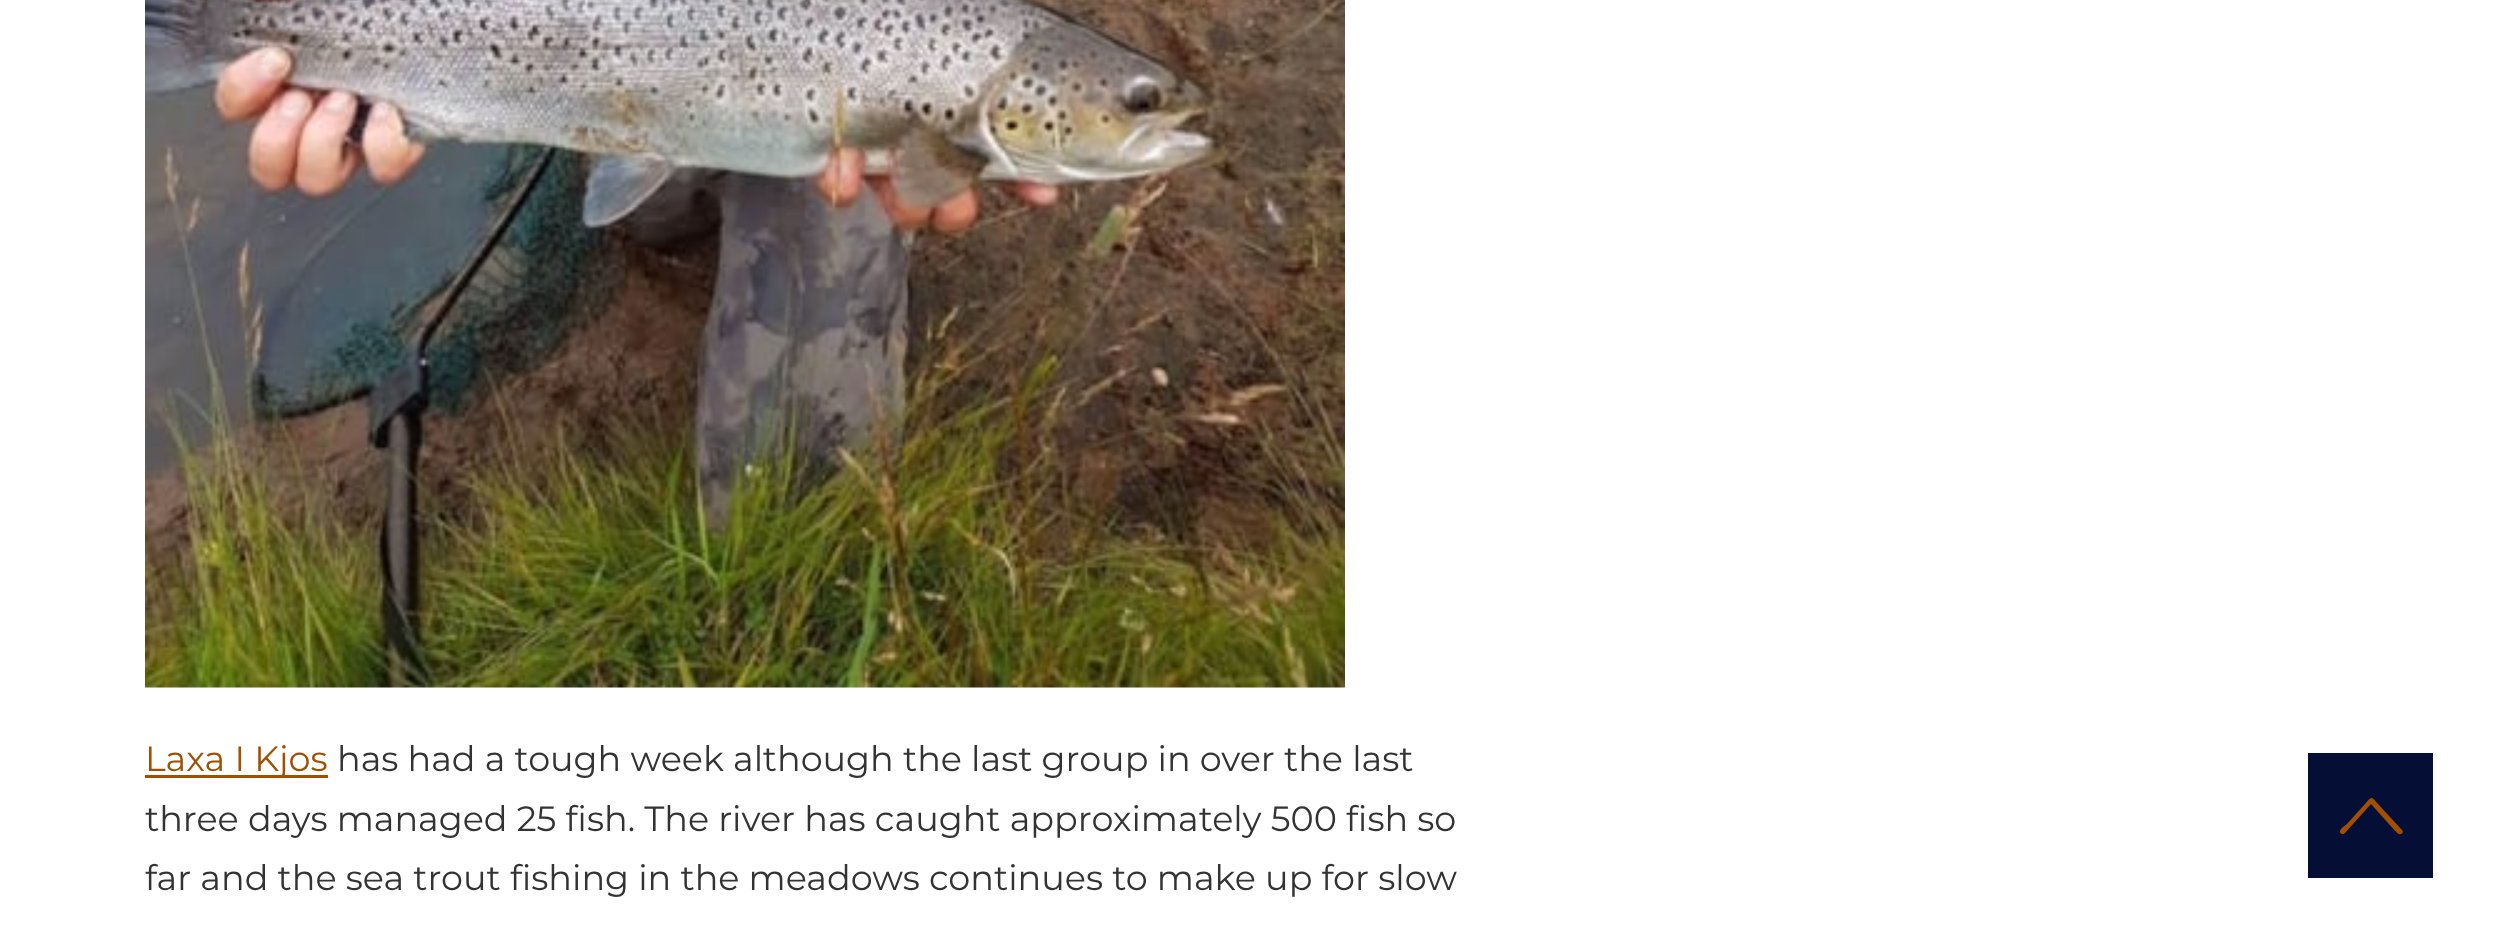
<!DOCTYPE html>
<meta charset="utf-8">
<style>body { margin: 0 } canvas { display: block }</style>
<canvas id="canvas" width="2506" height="927"></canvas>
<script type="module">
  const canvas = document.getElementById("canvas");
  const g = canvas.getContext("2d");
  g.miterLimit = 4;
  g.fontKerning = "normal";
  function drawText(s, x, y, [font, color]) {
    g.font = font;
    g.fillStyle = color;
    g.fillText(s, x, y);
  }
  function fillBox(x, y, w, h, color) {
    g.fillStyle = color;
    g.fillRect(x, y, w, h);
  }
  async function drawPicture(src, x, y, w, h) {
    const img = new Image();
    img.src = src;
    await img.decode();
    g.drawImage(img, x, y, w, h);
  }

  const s1 = ["35px Montserrat", "#A24F01"];
  const s2 = ["35px Montserrat", "#333333"];

  fillBox(0, 0, 2506, 927, "#FFFFFF");
  await drawPicture("pic1.png", 145, 0, 1200, 688);
  fillBox(145, 775, 183, 3, "#A24F01");
  drawText("Laxa I Kjos", 145, 771, s1);
  drawText("has had a tough week although the last group in over the last", 337, 771, s2);
  drawText("three days managed 25 fish. The river has caught approximately 500 fish so", 145, 831, s2);
  drawText("far and the sea trout fishing in the meadows continues to make up for slow", 145, 890, s2);
  fillBox(2308, 753, 125, 125, "#050F36");
  g.fillStyle = "#A24F01";
  g.beginPath();
  g.moveTo(2402, 830);
  g.lineTo(2378, 804);
  g.bezierCurveTo(2371, 796, 2372, 796, 2365, 804);
  g.lineTo(2346, 825);
  g.bezierCurveTo(2345, 825, 2336, 832, 2342, 834);
  g.lineTo(2344, 834);
  g.lineTo(2371, 804);
  g.bezierCurveTo(2375, 808, 2397, 834, 2399, 834);
  g.bezierCurveTo(2402, 835, 2404, 832, 2402, 830);
  g.closePath();
  g.fill();
</script>
